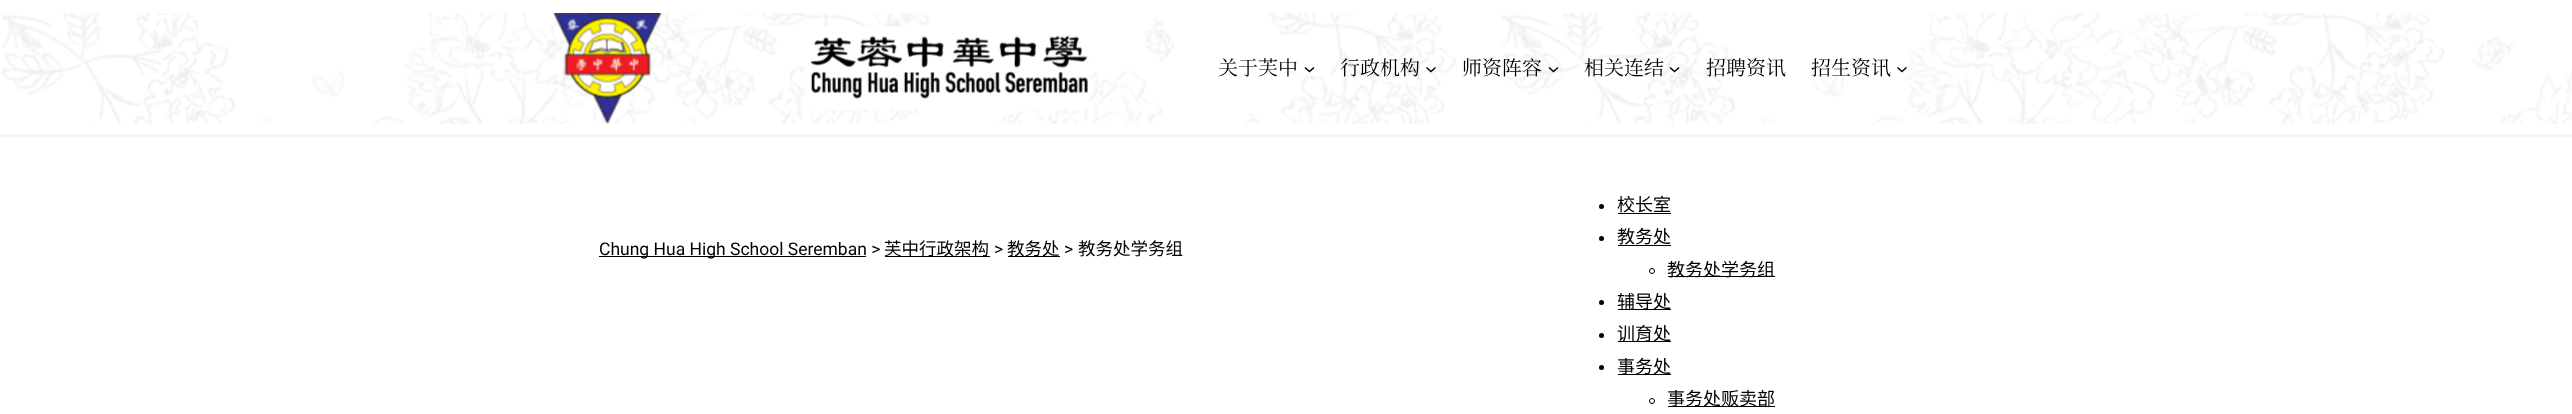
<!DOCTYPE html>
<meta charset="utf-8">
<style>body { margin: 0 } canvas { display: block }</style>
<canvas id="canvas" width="2572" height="414"></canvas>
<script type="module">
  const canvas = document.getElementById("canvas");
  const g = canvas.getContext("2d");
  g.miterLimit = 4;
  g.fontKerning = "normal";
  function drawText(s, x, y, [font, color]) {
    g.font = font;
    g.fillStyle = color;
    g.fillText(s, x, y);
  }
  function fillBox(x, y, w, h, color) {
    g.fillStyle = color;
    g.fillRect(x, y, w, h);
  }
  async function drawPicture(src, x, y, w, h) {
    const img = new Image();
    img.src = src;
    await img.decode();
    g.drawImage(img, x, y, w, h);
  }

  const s1 = ["20px Noto Serif SC", "#000000"];
  const s2 = ["17.5px Roboto", "#000000"];
  const s3 = ["17.5px Noto Sans CJK TC", "#000000"];
  const s4 = ["18px Noto Sans CJK TC", "#000000"];

  fillBox(0, 0, 2572, 414, "#FFFFFF");
  await drawPicture("pic1.png", 1, 13, 2571, 111);
  await drawPicture("pic2.png", 554, 13, 108, 111);
  await drawPicture("pic3.png", 806, 26, 284, 84);
  drawText("关于芙中", 1218, 75, s1);
  g.beginPath();
  g.moveTo(1305, 67.5);
  g.lineTo(1309.5, 71.5);
  g.lineTo(1314, 67.5);
  g.strokeStyle = "#000000";
  g.lineWidth = 1.5;
  g.stroke();
  drawText("行政机构", 1340, 75, s1);
  g.beginPath();
  g.moveTo(1426.5, 67.5);
  g.lineTo(1431, 71.5);
  g.lineTo(1435.5, 67.5);
  g.stroke();
  drawText("师资阵容", 1462, 75, s1);
  g.beginPath();
  g.moveTo(1549, 67.5);
  g.lineTo(1553.5, 71.5);
  g.lineTo(1558, 67.5);
  g.stroke();
  drawText("相关连结", 1584, 75, s1);
  g.beginPath();
  g.moveTo(1670, 67.5);
  g.lineTo(1674.5, 71.5);
  g.lineTo(1679, 67.5);
  g.stroke();
  drawText("招聘资讯", 1706, 75, s1);
  drawText("招生资讯", 1811, 75, s1);
  g.beginPath();
  g.moveTo(1897.5, 67.5);
  g.lineTo(1902, 71.5);
  g.lineTo(1906.5, 67.5);
  g.stroke();
  fillBox(0, 134, 2572, 3, "#F6F6F6");
  fillBox(599, 256, 267, 1, "#000000");
  drawText("Chung Hua High School Seremban >", 599, 255, s2);
  fillBox(885, 256, 105, 1, "#000000");
  drawText("芙中行政架构", 884, 255, s3);
  drawText(">", 994, 255, s2);
  fillBox(1008, 256, 52, 1, "#000000");
  drawText("教务处", 1007, 255, s3);
  drawText(">", 1064, 255, s2);
  drawText("教务处学务组", 1078, 255, s3);
  g.beginPath();
  g.arc(1601.5, 206.5, 2.5, 0, Math.PI * 2);
  g.fill();
  drawText("校长室", 1617, 211, s4);
  fillBox(1618, 213, 53, 1, "#000000");
  g.beginPath();
  g.arc(1601.5, 238.5, 2.5, 0, Math.PI * 2);
  g.fill();
  drawText("教务处", 1617, 243, s4);
  fillBox(1618, 245, 53, 1, "#000000");
  g.beginPath();
  g.arc(1652, 271, 2.5, 0, Math.PI * 2);
  g.lineWidth = 1;
  g.stroke();
  fillBox(1668, 276, 107, 1, "#000000");
  drawText("教务处学务组", 1667, 276, s4);
  g.beginPath();
  g.arc(1601.5, 302.5, 2.5, 0, Math.PI * 2);
  g.fill();
  fillBox(1618, 309, 53, 1, "#000000");
  drawText("辅导处", 1617, 308, s4);
  g.beginPath();
  g.arc(1601.5, 335.5, 2.5, 0, Math.PI * 2);
  g.fill();
  fillBox(1618, 341, 53, 1, "#000000");
  drawText("训育处", 1617, 340, s4);
  g.beginPath();
  g.arc(1601.5, 367.5, 2.5, 0, Math.PI * 2);
  g.fill();
  fillBox(1618, 374, 53, 1, "#000000");
  drawText("事务处", 1617, 373, s4);
  g.beginPath();
  g.arc(1652, 401, 2.5, 0, Math.PI * 2);
  g.stroke();
  fillBox(1668, 406, 107, 1, "#000000");
  drawText("事务处贩卖部", 1667, 405, s4);
</script>
